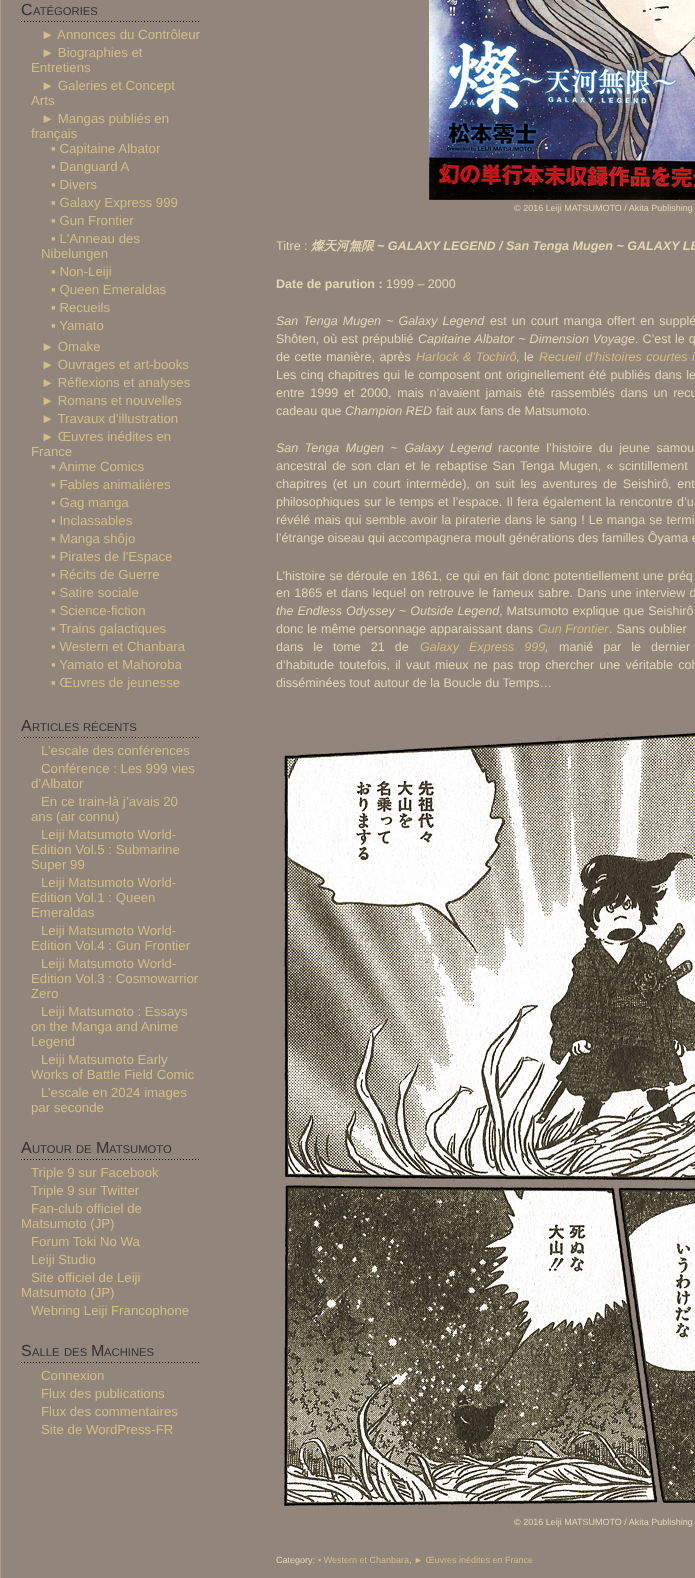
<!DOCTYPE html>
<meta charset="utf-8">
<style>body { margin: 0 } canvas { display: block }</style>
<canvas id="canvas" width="695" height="1578"></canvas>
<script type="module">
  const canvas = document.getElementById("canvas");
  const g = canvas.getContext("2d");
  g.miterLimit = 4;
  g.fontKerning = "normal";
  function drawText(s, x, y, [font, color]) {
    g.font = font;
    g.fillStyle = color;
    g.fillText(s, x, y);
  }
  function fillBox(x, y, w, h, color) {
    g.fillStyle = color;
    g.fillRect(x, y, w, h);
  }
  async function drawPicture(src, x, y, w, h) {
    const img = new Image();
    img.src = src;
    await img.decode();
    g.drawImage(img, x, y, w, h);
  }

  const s1 = ["16px Liberation Sans", "#333333"];
  const s2 = ["11.25px Liberation Sans", "#333333"];
  const s3 = ["13.25px Liberation Sans", "#D4BE87"];
  const s4 = ["9px Liberation Sans", "#E4D6B4"];
  const s5 = ["12.55px Liberation Sans", "#E4D6B4"];
  const s6 = ["italic bold 12.55px WenQuanYi Zen Hei", "#E4D6B4"];
  const s7 = ["italic bold 12.55px Liberation Sans", "#E4D6B4"];
  const s8 = ["bold 12.55px Liberation Sans", "#E4D6B4"];
  const s9 = ["italic 12.55px Liberation Sans", "#E4D6B4"];
  const s10 = ["italic 12.55px Liberation Sans", "#D4BE87"];
  const s11 = ["9px Liberation Sans", "#D4BE87"];

  fillBox(0, 0, 695, 1578, "#92857C");
  g.strokeStyle = "#B19787";
  g.strokeRect(0.5, -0.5, 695, 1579);
  await drawPicture("pic1.png", 21, 21, 178, 1);
  drawText("C", 21, 15, s1);
  drawText("ATÉGORIES", 33, 15, s2);
  drawText("► Annonces du Contrôleur", 41, 39, s3);
  drawText("► Biographies et", 41, 57, s3);
  drawText("Entretiens", 31, 72, s3);
  drawText("► Galeries et Concept", 41, 90, s3);
  drawText("Arts", 31, 105, s3);
  drawText("► Mangas publiés en", 41, 123, s3);
  drawText("français", 31, 138, s3);
  drawText("▪ Capitaine Albator", 51, 153, s3);
  drawText("▪ Danguard A", 51, 171, s3);
  drawText("▪ Divers", 51, 189, s3);
  drawText("▪ Galaxy Express 999", 51, 207, s3);
  drawText("▪ Gun Frontier", 51, 225, s3);
  drawText("▪ L'Anneau des", 51, 243, s3);
  drawText("Nibelungen", 41, 258, s3);
  drawText("▪ Non-Leiji", 51, 276, s3);
  drawText("▪ Queen Emeraldas", 51, 294, s3);
  drawText("▪ Recueils", 51, 312, s3);
  drawText("▪ Yamato", 51, 330, s3);
  drawText("► Omake", 41, 351, s3);
  drawText("► Ouvrages et art-books", 41, 369, s3);
  drawText("► Réflexions et analyses", 41, 387, s3);
  drawText("► Romans et nouvelles", 41, 405, s3);
  drawText("► Travaux d'illustration", 41, 423, s3);
  drawText("► Œuvres inédites en", 41, 441, s3);
  drawText("France", 31, 456, s3);
  drawText("▪ Anime Comics", 51, 471, s3);
  drawText("▪ Fables animalières", 51, 489, s3);
  drawText("▪ Gag manga", 51, 507, s3);
  drawText("▪ Inclassables", 51, 525, s3);
  drawText("▪ Manga shôjo", 51, 543, s3);
  drawText("▪ Pirates de l'Espace", 51, 561, s3);
  drawText("▪ Récits de Guerre", 51, 579, s3);
  drawText("▪ Satire sociale", 51, 597, s3);
  drawText("▪ Science-fiction", 51, 615, s3);
  drawText("▪ Trains galactiques", 51, 633, s3);
  drawText("▪ Western et Chanbara", 51, 651, s3);
  drawText("▪ Yamato et Mahoroba", 51, 669, s3);
  drawText("▪ Œuvres de jeunesse", 51, 687, s3);
  await drawPicture("pic1.png", 21, 737, 178, 1);
  drawText("A", 21, 731, s1);
  drawText("RTICLES", 32, 731, s2);
  drawText("RÉCENTS", 83, 731, s2);
  drawText("L’escale des conférences", 41, 755, s3);
  drawText("Conférence : Les 999 vies", 41, 773, s3);
  drawText("d’Albator", 31, 788, s3);
  drawText("En ce train-là j’avais 20", 41, 806, s3);
  drawText("ans (air connu)", 31, 821, s3);
  drawText("Leiji Matsumoto World-", 41, 839, s3);
  drawText("Edition Vol.5 : Submarine", 31, 854, s3);
  drawText("Super 99", 31, 869, s3);
  drawText("Leiji Matsumoto World-", 41, 887, s3);
  drawText("Edition Vol.1 : Queen", 31, 902, s3);
  drawText("Emeraldas", 31, 917, s3);
  drawText("Leiji Matsumoto World-", 41, 935, s3);
  drawText("Edition Vol.4 : Gun Frontier", 31, 950, s3);
  drawText("Leiji Matsumoto World-", 41, 968, s3);
  drawText("Edition Vol.3 : Cosmowarrior", 31, 983, s3);
  drawText("Zero", 31, 998, s3);
  drawText("Leiji Matsumoto : Essays", 41, 1016, s3);
  drawText("on the Manga and Anime", 31, 1031, s3);
  drawText("Legend", 31, 1046, s3);
  drawText("Leiji Matsumoto Early", 41, 1064, s3);
  drawText("Works of Battle Field Comic", 31, 1079, s3);
  drawText("L’escale en 2024 images", 41, 1097, s3);
  drawText("par seconde", 31, 1112, s3);
  await drawPicture("pic1.png", 21, 1159, 178, 1);
  drawText("A", 21, 1153, s1);
  drawText("UTOUR", 32, 1153, s2);
  drawText("DE", 76, 1153, s2);
  drawText("M", 96, 1153, s1);
  drawText("ATSUMOTO", 109, 1153, s2);
  drawText("Triple 9 sur Facebook", 31, 1177, s3);
  drawText("Triple 9 sur Twitter", 31, 1195, s3);
  drawText("Fan-club officiel de", 31, 1213, s3);
  drawText("Matsumoto (JP)", 21, 1228, s3);
  drawText("Forum Toki No Wa", 31, 1246, s3);
  drawText("Leiji Studio", 31, 1264, s3);
  drawText("Site officiel de Leiji", 31, 1282, s3);
  drawText("Matsumoto (JP)", 21, 1297, s3);
  drawText("Webring Leiji Francophone", 31, 1315, s3);
  await drawPicture("pic1.png", 21, 1362, 178, 1);
  drawText("S", 21, 1356, s1);
  drawText("ALLE", 32, 1356, s2);
  drawText("DES", 64, 1356, s2);
  drawText("M", 91, 1356, s1);
  drawText("ACHINES", 104, 1356, s2);
  drawText("Connexion", 41, 1380, s3);
  drawText("Flux des publications", 41, 1398, s3);
  drawText("Flux des commentaires", 41, 1416, s3);
  drawText("Site de WordPress-FR", 41, 1434, s3);
  await drawPicture("pic2.png", 429, 0, 266, 200);
  drawText("© 2016 Leiji MATSUMOTO / Akita Publishing", 514, 211, s4);
  drawText("Titre :", 276, 250, s5);
  drawText("燦天河無限", 311, 250, s6);
  drawText("~ GALAXY LEGEND / San Tenga Mugen ~ GALAXY LE", 377, 250, s7);
  drawText("Date de parution :", 276, 288, s8);
  drawText("1999 – 2000", 386, 288, s5);
  g.wordSpacing = "1.5px";
  drawText("San Tenga Mugen ~ Galaxy Legend", 276, 325, s9);
  drawText("est un court manga offert en supplé", 490, 325, s5);
  g.wordSpacing = "0.5px";
  drawText("Shôten, où est prépublié", 276, 343, s5);
  drawText("Capitaine Albator ~ Dimension Voyage", 418, 343, s9);
  drawText(". C’est le q", 635, 343, s5);
  g.wordSpacing = "1px";
  drawText("de cette manière, après", 276, 361, s5);
  drawText("Harlock & Tochirô", 416, 361, s10);
  drawText(", le", 516, 361, s5);
  drawText("Recueil d’histoires courtes i", 539, 361, s10);
  g.wordSpacing = "0.9px";
  drawText("Les cinq chapitres qui le composent ont originellement été publiés dans le", 276, 379, s5);
  g.wordSpacing = "2.25px";
  drawText("entre 1999 et 2000, mais n’avaient jamais été rassemblés dans un recu", 276, 397, s5);
  g.wordSpacing = "0px";
  drawText("cadeau que", 276, 415, s5);
  drawText("Champion RED", 345, 415, s9);
  drawText("fait aux fans de Matsumoto.", 436, 415, s5);
  g.wordSpacing = "3px";
  drawText("San Tenga Mugen ~ Galaxy Legend", 276, 452, s9);
  drawText("raconte l’histoire du jeune samou", 498, 452, s5);
  g.wordSpacing = "1.75px";
  drawText("ancestral de son clan et le rebaptise San Tenga Mugen, « scintillement", 276, 470, s5);
  g.wordSpacing = "2.25px";
  drawText("chapitres (et un court intermède), on suit les aventures de Seishirô, ent", 276, 488, s5);
  g.wordSpacing = "0.75px";
  drawText("philosophiques sur le temps et l’espace. Il fera également la rencontre d’u", 276, 506, s5);
  g.wordSpacing = "0.6px";
  drawText("révélé mais qui semble avoir la piraterie dans le sang ! Le manga se termi", 276, 524, s5);
  g.wordSpacing = "0px";
  drawText("l’étrange oiseau qui accompagnera moult générations des familles Ôyama e", 276, 542, s5);
  g.wordSpacing = "0.5px";
  drawText("L’histoire se déroule en 1861, ce qui en fait donc potentiellement une préq", 276, 580, s5);
  g.wordSpacing = "0.75px";
  drawText("en 1865 et dans lequel on retrouve le fameux sabre. Dans une interview d", 276, 597, s5);
  g.wordSpacing = "0.5px";
  drawText("the Endless Odyssey ~ Outside Legend", 276, 615, s9);
  drawText(", Matsumoto explique que Seishirô", 499, 615, s5);
  drawText("donc le même personnage apparaissant dans", 276, 633, s5);
  g.wordSpacing = "0px";
  drawText("Gun Frontier", 538, 633, s10);
  g.wordSpacing = "0.5px";
  drawText(". Sans oublier", 609, 633, s5);
  g.wordSpacing = "6.5px";
  drawText("dans le tome 21 de", 276, 651, s5);
  drawText("Galaxy Express 999", 420, 651, s10);
  g.wordSpacing = "0px";
  drawText(",", 545, 651, s9);
  g.wordSpacing = "6.5px";
  drawText("manié par le dernier", 559, 651, s5);
  g.wordSpacing = "1.75px";
  drawText("d’habitude toutefois, il vaut mieux ne pas trop chercher une véritable coh", 276, 669, s5);
  g.wordSpacing = "0px";
  drawText("disséminées tout autour de la Boucle du Temps…", 276, 687, s5);
  await drawPicture("pic3.png", 276, 731, 419, 782);
  drawText("© 2016 Leiji MATSUMOTO / Akita Publishing", 514, 1525, s4);
  drawText("Category:", 276, 1563, s4);
  drawText("▪ Western et Chanbara", 318, 1563, s11);
  drawText(",", 409, 1563, s4);
  drawText("► Œuvres inédites en France", 414, 1563, s11);
</script>
